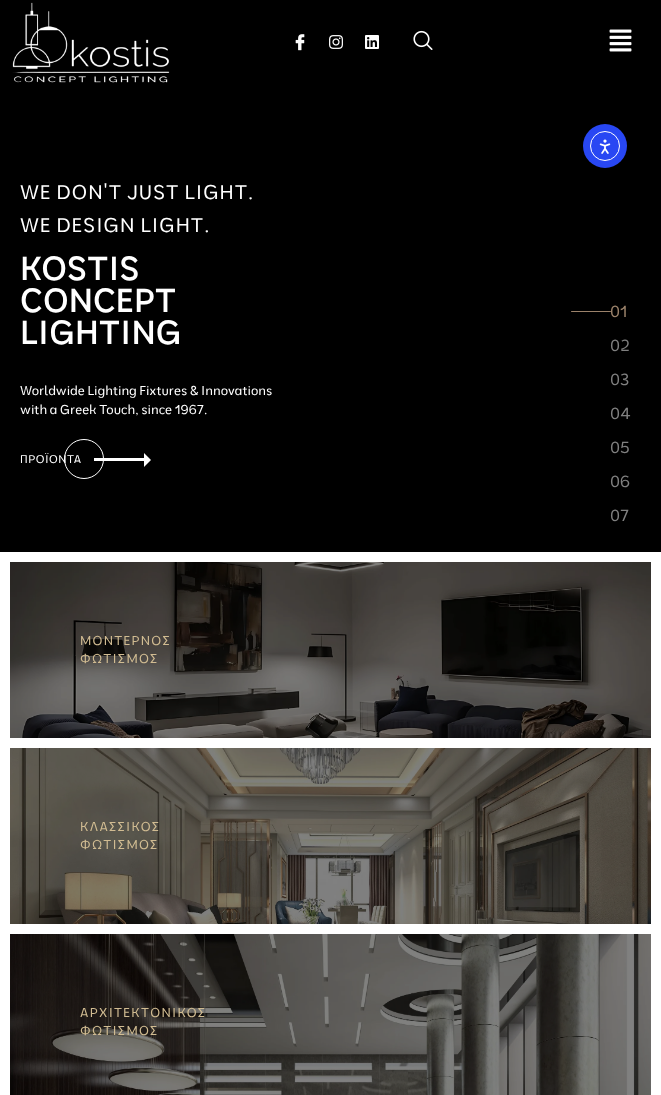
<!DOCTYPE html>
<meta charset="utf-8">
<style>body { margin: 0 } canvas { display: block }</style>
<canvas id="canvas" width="661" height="1095"></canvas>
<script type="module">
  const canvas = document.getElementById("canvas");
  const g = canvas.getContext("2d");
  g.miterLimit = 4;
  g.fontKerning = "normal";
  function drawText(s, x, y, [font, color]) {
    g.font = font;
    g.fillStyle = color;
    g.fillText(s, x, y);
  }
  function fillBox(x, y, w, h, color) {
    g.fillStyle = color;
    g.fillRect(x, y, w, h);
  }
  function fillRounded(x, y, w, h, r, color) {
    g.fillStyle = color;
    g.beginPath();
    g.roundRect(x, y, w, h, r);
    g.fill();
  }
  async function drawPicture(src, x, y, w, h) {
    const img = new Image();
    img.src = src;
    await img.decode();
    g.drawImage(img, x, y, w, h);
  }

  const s1 = ["19.75px Moderustic", "#FFFFFF"];
  const s2 = ["bold 32px Moderustic", "#FFFFFF"];
  const s3 = ["12.75px Moderustic", "#FFFFFF"];
  const s4 = ["11.25px Moderustic", "#FFFFFF"];
  const s5 = ["16px Moderustic", "#9B826A"];
  const s6 = ["16px Moderustic", "#808080"];
  const s7 = ["12.75px Moderustic", "#D1BC92"];

  fillBox(0, 0, 661, 1095, "#000000");
  await drawPicture("pic1.png", 12, 2, 158, 81);
  await drawPicture("pic2.png", 295, 34, 10, 17);
  await drawPicture("pic3.png", 329, 35, 14, 14);
  await drawPicture("pic4.png", 365, 35, 14, 14);
  await drawPicture("pic5.png", 413, 30, 20, 20);
  await drawPicture("pic6.png", 609, 29, 23, 23);
  g.fillStyle = "#2847F3";
  g.beginPath();
  g.arc(605, 146, 22, 0, Math.PI * 2);
  g.fill();
  g.beginPath();
  g.arc(605, 146, 14.5, 0, Math.PI * 2);
  g.strokeStyle = "#FFFFFF";
  g.stroke();
  await drawPicture("pic7.png", 599, 139, 12, 15);
  g.letterSpacing = "1px";
  drawText("WE DON'T JUST LIGHT.", 20, 199, s1);
  drawText("WE DESIGN LIGHT.", 20, 232, s1);
  drawText("KOSTIS", 20, 280, s2);
  drawText("CONCEPT", 20, 312, s2);
  drawText("LIGHTING", 20, 344, s2);
  g.letterSpacing = "0px";
  drawText("Worldwide Lighting Fixtures & Innovations", 20, 395, s3);
  drawText("with a Greek Touch, since 1967.", 20, 414, s3);
  g.beginPath();
  g.arc(84, 459, 19.5, 0, Math.PI * 2);
  g.stroke();
  g.letterSpacing = "0.5px";
  drawText("ΠΡΟΪΟΝΤΑ", 20, 463, s4);
  fillBox(94, 458, 50, 3, "#FFFFFF");
  g.beginPath();
  g.moveTo(144, 467);
  g.lineTo(144, 453);
  g.lineTo(151, 460);
  g.closePath();
  g.fill();
  fillRounded(571, 311, 40, 1, 0.5, "#9B826A");
  g.letterSpacing = "0px";
  drawText("01", 610, 317, s5);
  drawText("02", 610, 351, s6);
  drawText("03", 610, 385, s6);
  drawText("04", 610, 419, s6);
  drawText("05", 610, 453, s6);
  drawText("06", 610, 487, s6);
  drawText("07", 610, 521, s6);
  fillBox(0, 552, 661, 543, "#FFFFFF");
  await drawPicture("pic8.png", 10, 562, 641, 176);
  g.letterSpacing = "1.25px";
  drawText("ΜΟΝΤΕΡΝΟΣ", 80, 645, s7);
  drawText("ΦΩΤΙΣΜΟΣ", 80, 663, s7);
  await drawPicture("pic9.png", 10, 748, 641, 176);
  drawText("ΚΛΑΣΣΙΚΟΣ", 80, 831, s7);
  drawText("ΦΩΤΙΣΜΟΣ", 80, 849, s7);
  await drawPicture("pic10.png", 10, 934, 641, 161);
  drawText("ΑΡΧΙΤΕΚΤΟΝΙΚΟΣ", 80, 1017, s7);
  drawText("ΦΩΤΙΣΜΟΣ", 80, 1035, s7);
</script>
